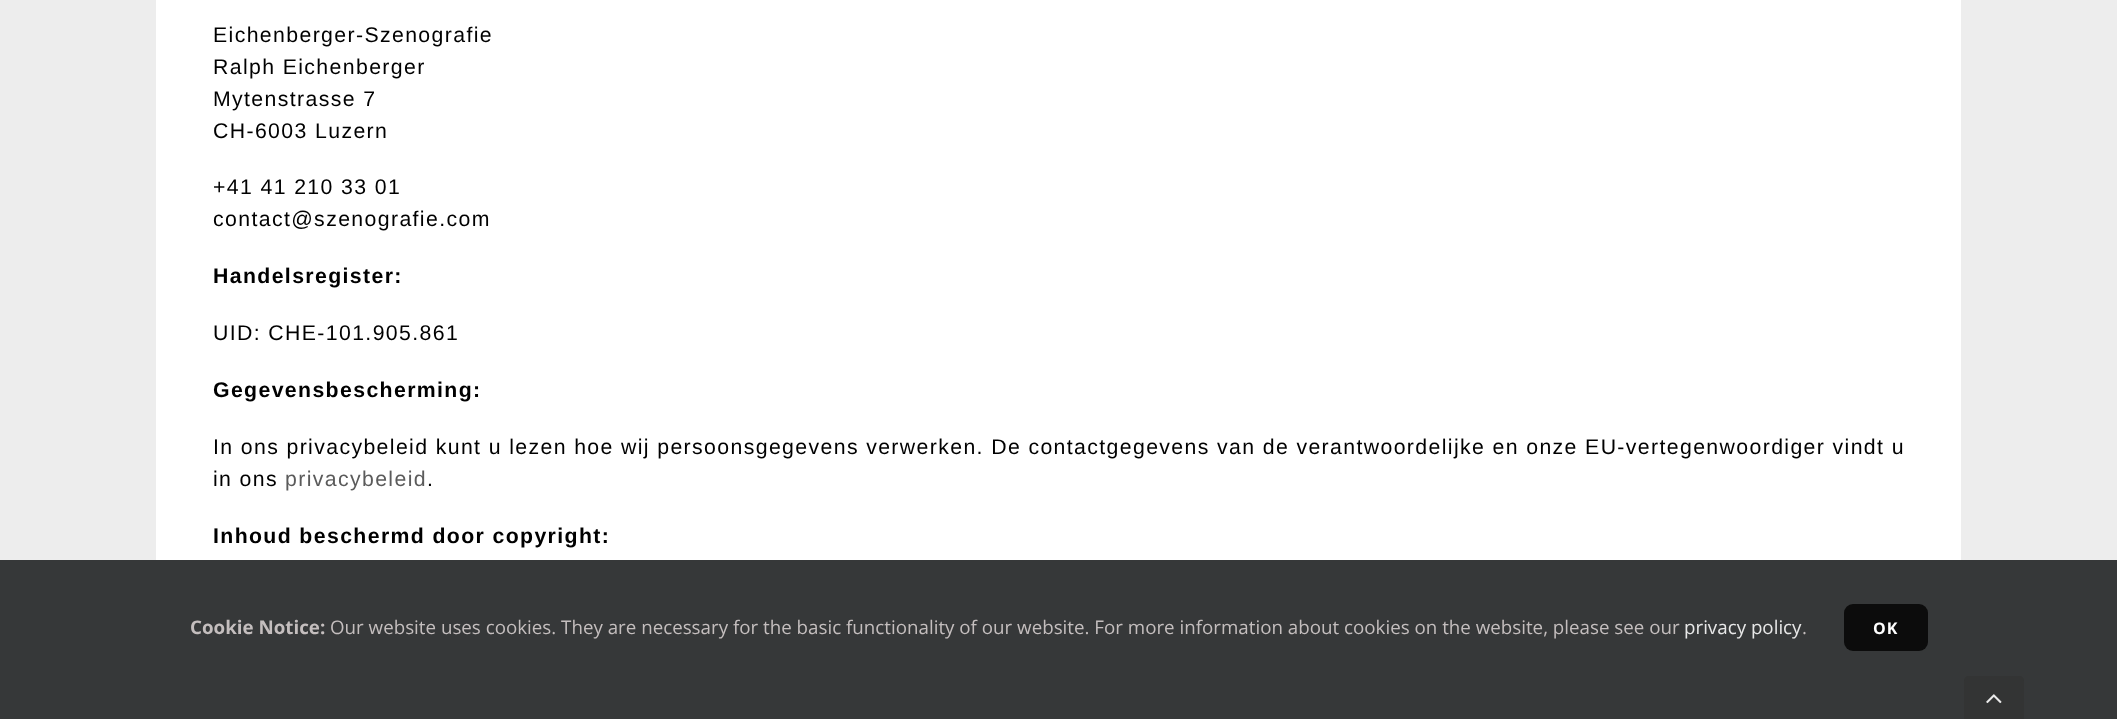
<!DOCTYPE html>
<meta charset="utf-8">
<style>body { margin: 0 } canvas { display: block }</style>
<canvas id="canvas" width="2117" height="719"></canvas>
<script type="module">
  const canvas = document.getElementById("canvas");
  const g = canvas.getContext("2d");
  g.miterLimit = 4;
  g.fontKerning = "normal";
  function drawText(s, x, y, [font, color]) {
    g.font = font;
    g.fillStyle = color;
    g.fillText(s, x, y);
  }
  function fillBox(x, y, w, h, color) {
    g.fillStyle = color;
    g.fillRect(x, y, w, h);
  }
  function fillRounded(x, y, w, h, r, color) {
    g.fillStyle = color;
    g.beginPath();
    g.roundRect(x, y, w, h, r);
    g.fill();
  }
  async function drawPicture(src, x, y, w, h) {
    const img = new Image();
    img.src = src;
    await img.decode();
    g.drawImage(img, x, y, w, h);
  }

  const s1 = ["21.25px Liberation Sans", "#000000"];
  const s2 = ["bold 21.25px Liberation Sans", "#000000"];
  const s3 = ["21.25px Liberation Sans", "#5B5B5B"];
  const s4 = ["bold 18.75px Open Sans", "#C4BEBE"];
  const s5 = ["18.75px Open Sans", "#C4BEBE"];
  const s6 = ["18.75px Open Sans", "#E8E8E8"];
  const s7 = ["bold 16px Open Sans", "#FFFFFF"];

  fillBox(0, 0, 2117, 719, "#EDEDED");
  fillBox(156, 0, 1805, 560, "#FFFFFF");
  g.letterSpacing = "1.38px";
  drawText("Eichenberger-Szenografie", 213, 42, s1);
  drawText("Ralph Eichenberger", 213, 74, s1);
  drawText("Mytenstrasse 7", 213, 106, s1);
  drawText("CH-6003 Luzern", 213, 138, s1);
  drawText("+41 41 210 33 01", 213, 194, s1);
  drawText("contact@szenografie.com", 213, 226, s1);
  drawText("Handelsregister:", 213, 283, s2);
  drawText("UID: CHE-101.905.861", 213, 340, s1);
  drawText("Gegevensbescherming:", 213, 397, s2);
  drawText("In ons privacybeleid kunt u lezen hoe wij persoonsgegevens verwerken. De contactgegevens van de verantwoordelijke en onze EU-vertegenwoordiger vindt u", 213, 454, s1);
  drawText("in ons", 213, 486, s1);
  drawText("privacybeleid", 285, 486, s3);
  drawText(".", 427, 486, s1);
  drawText("Inhoud beschermd door copyright:", 213, 543, s2);
  fillBox(0, 560, 2117, 159, "#363839");
  g.letterSpacing = "0px";
  drawText("Cookie Notice:", 190, 634, s4);
  drawText("Our website uses cookies. They are necessary for the basic functionality of our website. For more information about cookies on the website, please see our", 330, 634, s5);
  drawText("privacy policy", 1684, 634, s6);
  drawText(".", 1802, 634, s5);
  fillRounded(1844, 604, 84, 47, 9, "#0C0C0C");
  g.letterSpacing = "1px";
  drawText("OK", 1873, 634, s7);
  g.fillStyle = "#333434";
  g.beginPath();
  g.moveTo(1969, 676);
  g.lineTo(2019, 676);
  g.bezierCurveTo(2022, 676, 2024, 678, 2024, 681);
  g.lineTo(2024, 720);
  g.lineTo(1964, 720);
  g.lineTo(1964, 681);
  g.bezierCurveTo(1964, 678, 1966, 676, 1969, 676);
  g.closePath();
  g.fill();
  await drawPicture("pic1.png", 1986, 694, 16, 10);
</script>
